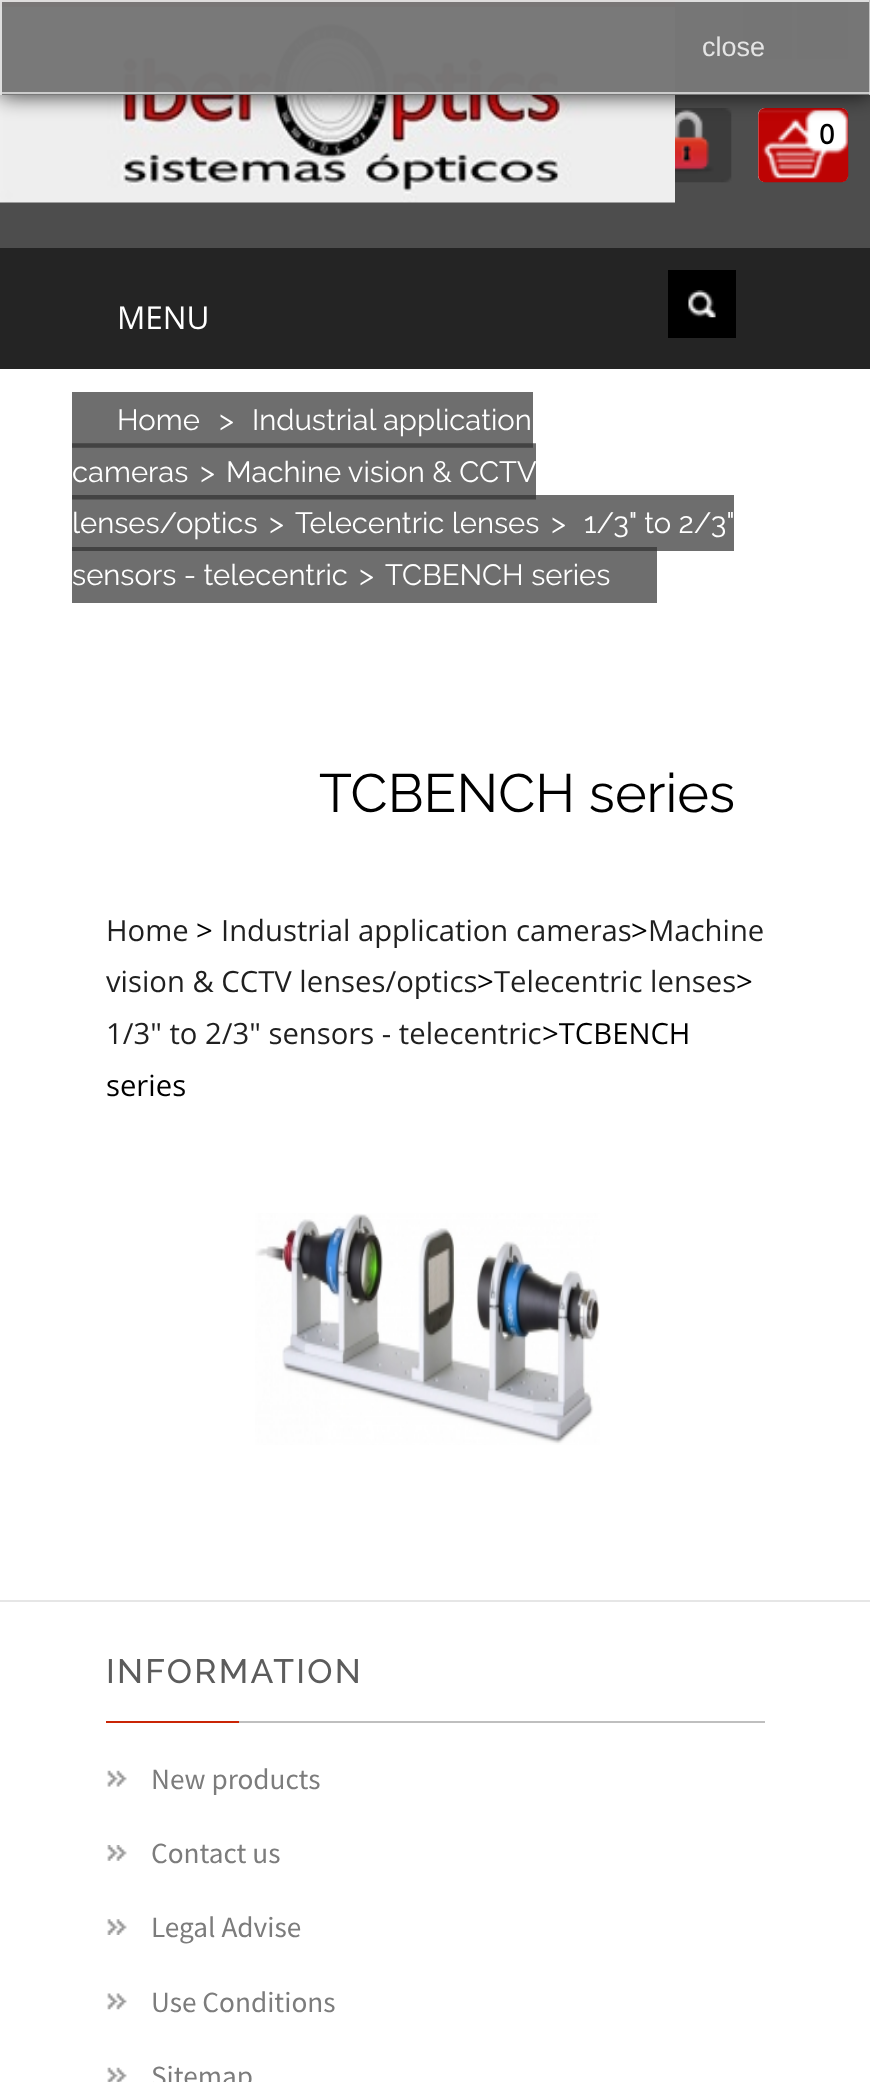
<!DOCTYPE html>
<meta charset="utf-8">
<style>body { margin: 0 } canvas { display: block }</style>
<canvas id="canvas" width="870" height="2082"></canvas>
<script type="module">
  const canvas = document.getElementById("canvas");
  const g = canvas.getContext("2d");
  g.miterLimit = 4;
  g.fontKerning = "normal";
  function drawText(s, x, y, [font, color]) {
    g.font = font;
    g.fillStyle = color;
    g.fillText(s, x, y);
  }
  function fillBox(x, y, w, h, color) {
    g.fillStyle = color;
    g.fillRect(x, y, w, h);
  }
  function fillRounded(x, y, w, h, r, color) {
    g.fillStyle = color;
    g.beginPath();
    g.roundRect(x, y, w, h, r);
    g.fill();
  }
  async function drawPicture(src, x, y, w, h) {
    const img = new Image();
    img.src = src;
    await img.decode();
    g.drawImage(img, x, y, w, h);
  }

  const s1 = ["27px Liberation Sans", "#E4E4E4"];
  const s2 = ["500 33.75px Raleway", "#5C5C5C"];
  const s3 = ["29.25px Source Sans Pro", "#7C7C7C"];
  const s4 = ["bold 27px Open Sans", "#000000"];
  const s5 = ["31.5px Open Sans", "#FFFFFF"];
  const s6 = ["29.25px Raleway", "#FFFFFF"];
  const s7 = ["54px Raleway", "#000000"];
  const s8 = ["29.25px Open Sans", "#1F1F1F"];
  const s9 = ["29.25px Open Sans", "#000000"];

  fillBox(0, 0, 870, 2082, "#FFFFFF");
  fillBox(0, 1600, 870, 2, "#E6E6E6");
  fillBox(0, 0, 870, 248, "#4D4D4D");
  fillBox(0, 0, 675, 7, "#CA2505");
  await drawPicture("pic6.png", 0, 6, 675, 197);
  g.fillStyle = "#1E1E1E";
  g.beginPath();
  g.rect(744, 3, 47, 55);
  g.fill();
  g.strokeStyle = "#3C3C3C";
  g.lineWidth = 2;
  g.stroke();
  g.beginPath();
  g.rect(798, 3, 49, 55);
  g.fill();
  g.stroke();
  await drawPicture("pic7.png", 675, 108, 57, 75);
  fillRounded(758, 108, 90, 74, 7, "#FFFFFF");
  await drawPicture("pic8.png", 758, 108, 91, 75);
  g.save();
  g.beginPath();
  g.moveTo(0, 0);
  g.lineTo(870, 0);
  g.lineTo(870, 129);
  g.lineTo(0, 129);
  g.closePath();
  g.moveTo(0, 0);
  g.lineTo(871, 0);
  g.lineTo(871, 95);
  g.lineTo(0, 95);
  g.closePath();
  g.clip("evenodd");
  g.fillStyle = "rgba(0, 0, 0, 0.8)";
  g.filter = "blur(11px)";
  g.beginPath();
  g.rect(0, 0, 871, 95);
  g.fill();
  g.filter = "none";
  g.restore();
  fillBox(0, 0, 869, 95, "rgba(0, 0, 0, 0.8)");
  fillBox(0, 0, 869, 95, "rgba(255, 255, 255, 0.8)");
  fillBox(0, 0, 870, 2, "rgba(225, 225, 225, 0.8)");
  fillBox(869, 0, 1, 95, "#C3C3C3");
  fillBox(2, 2, 619, 93, "rgba(48, 48, 48, 0.56)");
  fillBox(621, 2, 248, 93, "rgba(48, 48, 48, 0.56)");
  fillBox(0, 92, 870, 2, "rgba(225, 225, 225, 0.8)");
  fillBox(0, 0, 2, 95, "rgba(225, 225, 225, 0.8)");
  drawText("close", 702, 56, s1);
  g.letterSpacing = "2.25px";
  drawText("INFORMATION", 106, 1683, s2);
  fillBox(106, 1721, 139, 2, "#CA2505");
  fillBox(239, 1721, 526, 2, "#BFBFBF");
  await drawPicture("pic1.png", 107, 1770, 20, 17);
  g.letterSpacing = "0px";
  drawText("New products", 151, 1789, s3);
  await drawPicture("pic2.png", 107, 1845, 20, 16);
  drawText("Contact us", 151, 1863, s3);
  await drawPicture("pic3.png", 107, 1919, 20, 16);
  drawText("Legal Advise", 151, 1937, s3);
  await drawPicture("pic4.png", 107, 1993, 20, 17);
  drawText("Use Conditions", 151, 2012, s3);
  await drawPicture("pic5.png", 107, 2067, 20, 15);
  drawText("Sitemap", 151, 2086, s3);
  drawText("0", 819, 144, s4);
  fillBox(0, 248, 870, 121, "#242424");
  fillBox(668, 270, 68, 68, "#000000");
  await drawPicture("pic9.png", 688, 290, 28, 28);
  drawText("MENU", 117, 329, s5);
  await drawPicture("pic10.png", 72, 392, 662, 211);
  drawText("Home", 117, 430, s6);
  drawText(">", 219, 430, s6);
  drawText("Industrial application", 252, 430, s6);
  drawText("cameras", 72, 482, s6);
  drawText(">", 200, 482, s6);
  drawText("Machine vision & CCTV", 226, 482, s6);
  drawText("lenses/optics", 72, 533, s6);
  drawText(">", 269, 533, s6);
  drawText("Telecentric lenses", 295, 533, s6);
  drawText(">", 551, 533, s6);
  drawText("1/3\" to 2/3\"", 584, 533, s6);
  drawText("sensors - telecentric", 72, 585, s6);
  drawText(">", 359, 585, s6);
  drawText("TCBENCH series", 385, 585, s6);
  drawText("TCBENCH series", 319, 812, s7);
  drawText("Home", 106, 941, s8);
  drawText(">", 196, 941, s9);
  drawText("Industrial application cameras", 221, 941, s8);
  drawText(">", 631, 941, s9);
  drawText("Machine", 648, 941, s8);
  drawText("vision & CCTV lenses/optics", 106, 992, s8);
  drawText(">", 477, 992, s9);
  drawText("Telecentric lenses", 494, 992, s8);
  drawText(">", 736, 992, s9);
  drawText("1/3\" to 2/3\" sensors - telecentric", 106, 1044, s8);
  drawText(">TCBENCH", 542, 1044, s9);
  drawText("series", 106, 1096, s9);
  await drawPicture("pic11.png", 255, 1213, 345, 232);
</script>
